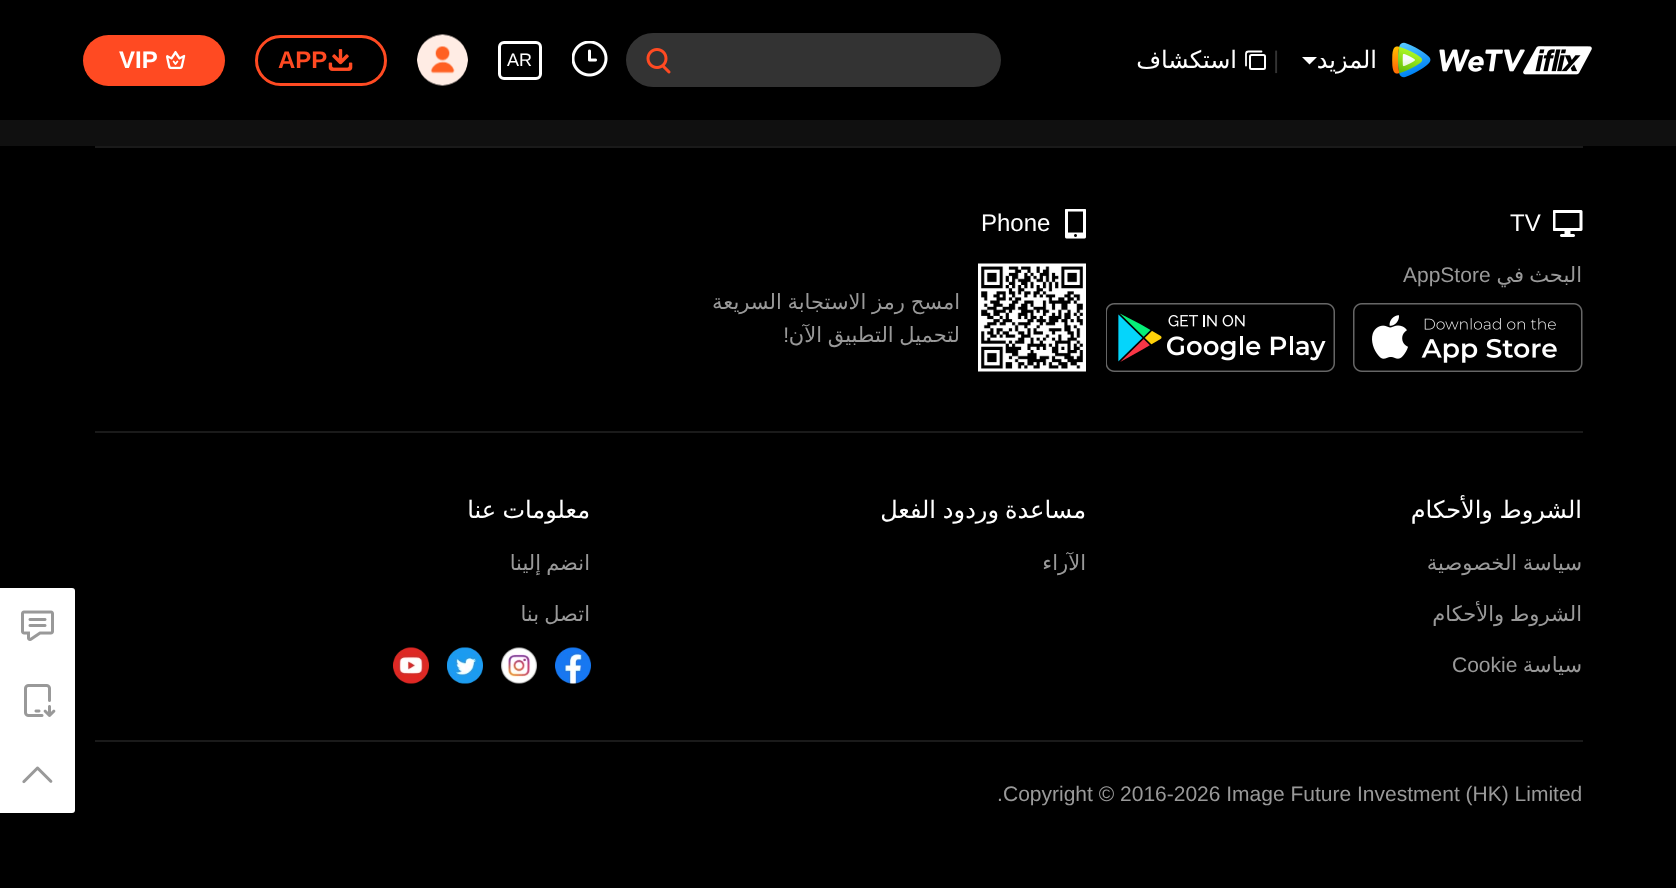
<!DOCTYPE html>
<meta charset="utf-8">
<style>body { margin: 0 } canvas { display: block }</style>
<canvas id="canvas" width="1676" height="888"></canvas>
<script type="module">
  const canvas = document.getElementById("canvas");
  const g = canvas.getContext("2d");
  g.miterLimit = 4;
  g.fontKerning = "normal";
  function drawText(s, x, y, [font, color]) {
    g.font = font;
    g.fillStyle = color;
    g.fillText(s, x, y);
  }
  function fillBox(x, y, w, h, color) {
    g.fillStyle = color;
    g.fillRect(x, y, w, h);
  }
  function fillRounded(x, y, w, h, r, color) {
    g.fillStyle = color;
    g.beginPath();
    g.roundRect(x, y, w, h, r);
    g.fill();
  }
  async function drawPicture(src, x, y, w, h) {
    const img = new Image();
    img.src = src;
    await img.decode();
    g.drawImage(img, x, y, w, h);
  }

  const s1 = ["24px DejaVu Sans", "#FFFFFF"];
  const s2 = ["24px Liberation Sans", "#333333"];
  const s3 = ["18px Liberation Sans", "#FFFFFF"];
  const s4 = ["bold 24px Liberation Sans", "#FF4A22"];
  const s5 = ["bold 24px Liberation Sans", "#FFFFFF"];
  const s6 = ["24px Liberation Sans", "#FFFFFF"];
  const s7 = ["21px DejaVu Sans", "#999999"];
  const s8 = ["21px Liberation Sans", "#999999"];

  fillBox(0, 0, 1676, 888, "#000000");
  await drawPicture("pic1.png", 1392, 42, 200, 36);
  g.direction = "rtl";
  drawText("المزيد", 1377, 68, s1);
  g.beginPath();
  g.moveTo(1302, 57);
  g.lineTo(1317, 57);
  g.lineTo(1309.5, 64.5);
  g.closePath();
  g.fill();
  g.direction = "ltr";
  drawText("|", 1273, 68, s2);
  g.beginPath();
  g.roundRect(1250, 55, 15, 14, 1.5);
  g.strokeStyle = "#FFFFFF";
  g.lineWidth = 2;
  g.stroke();
  g.beginPath();
  g.moveTo(1261.5, 51.5);
  g.lineTo(1248.5, 51.5);
  g.bezierCurveTo(1247, 51.5, 1246, 52.5, 1246, 54);
  g.lineTo(1246, 65.5);
  g.lineWidth = 1.8;
  g.lineCap = "round";
  g.stroke();
  g.direction = "rtl";
  drawText("استكشاف", 1237, 68, s1);
  fillRounded(626, 33, 375, 54, 27, "#333333");
  await drawPicture("pic2.png", 646, 48, 25, 26);
  await drawPicture("pic3.png", 572, 41, 36, 36);
  g.beginPath();
  g.roundRect(499.5, 42.5, 41, 36, 4.5);
  g.lineWidth = 3;
  g.stroke();
  g.direction = "ltr";
  drawText("AR", 507, 66, s3);
  await drawPicture("pic4.png", 417, 34, 51, 52);
  g.beginPath();
  g.roundRect(256.5, 36.5, 129, 48, 24);
  g.strokeStyle = "#FF4A22";
  g.stroke();
  await drawPicture("pic5.png", 328, 49, 25, 22);
  drawText("APP", 278, 68, s4);
  fillRounded(83, 35, 142, 51, 25.5, "#FF4A22");
  await drawPicture("pic6.png", 166, 50, 20, 20);
  drawText("VIP", 119, 68, s5);
  fillBox(0, 120, 1676, 26, "#101010");
  fillBox(95, 146, 1488, 2, "#1A1A1A");
  await drawPicture("pic7.png", 1553, 210, 30, 27);
  drawText("TV", 1510, 231, s6);
  g.direction = "rtl";
  drawText("البحث", 1582, 282, s7);
  drawText("في", 1524, 282, s7);
  g.direction = "ltr";
  drawText("AppStore", 1403, 282, s8);
  await drawPicture("pic8.png", 1353, 303, 230, 69);
  await drawPicture("pic9.png", 1106, 303, 229, 69);
  await drawPicture("pic10.png", 1065, 209, 21, 30);
  drawText("Phone", 981, 231, s6);
  await drawPicture("pic11.png", 978, 263, 108, 109);
  g.wordSpacing = "-1px";
  g.direction = "rtl";
  drawText("امسح رمز الاستجابة السريعة", 960, 309, s7);
  drawText("لتحميل التطبيق الآن", 960, 342, s7);
  g.wordSpacing = "0px";
  drawText("!", 789, 342, s8);
  fillBox(95, 431, 1488, 2, "#1A1A1A");
  g.wordSpacing = "-1px";
  drawText("الشروط والأحكام", 1582, 518, s1);
  drawText("سياسة الخصوصية", 1582, 570, s7);
  drawText("الشروط والأحكام", 1582, 621, s7);
  g.wordSpacing = "0px";
  drawText("سياسة", 1582, 672, s7);
  g.direction = "ltr";
  drawText("Cookie", 1452, 672, s8);
  g.direction = "rtl";
  drawText("مساعدة", 1086, 518, s1);
  drawText("وردود", 999, 518, s1);
  drawText("الفعل", 936, 518, s1);
  drawText("الآراء", 1086, 570, s7);
  drawText("معلومات", 590, 518, s1);
  drawText("عنا", 496, 518, s1);
  drawText("انضم", 590, 570, s7);
  drawText("إلينا", 541, 570, s7);
  drawText("اتصل", 590, 621, s7);
  drawText("بنا", 539, 621, s7);
  await drawPicture("pic12.png", 555, 647, 36, 37);
  await drawPicture("pic13.png", 501, 647, 36, 37);
  await drawPicture("pic14.png", 447, 647, 36, 37);
  await drawPicture("pic15.png", 393, 647, 36, 37);
  fillBox(95, 740, 1488, 2, "#1A1A1A");
  g.direction = "ltr";
  drawText("Copyright © 2016-2026 Image Future Investment (HK) Limited", 1003, 801, s8);
  drawText(".", 997, 801, s8);
  g.fillStyle = "#FFFFFF";
  g.beginPath();
  g.roundRect(0, 588, 75, 225, [0, 3, 3, 0]);
  g.fill();
  await drawPicture("pic16.png", 21, 610, 33, 31);
  await drawPicture("pic17.png", 24, 684, 32, 33);
  await drawPicture("pic18.png", 22, 766, 31, 18);
</script>
